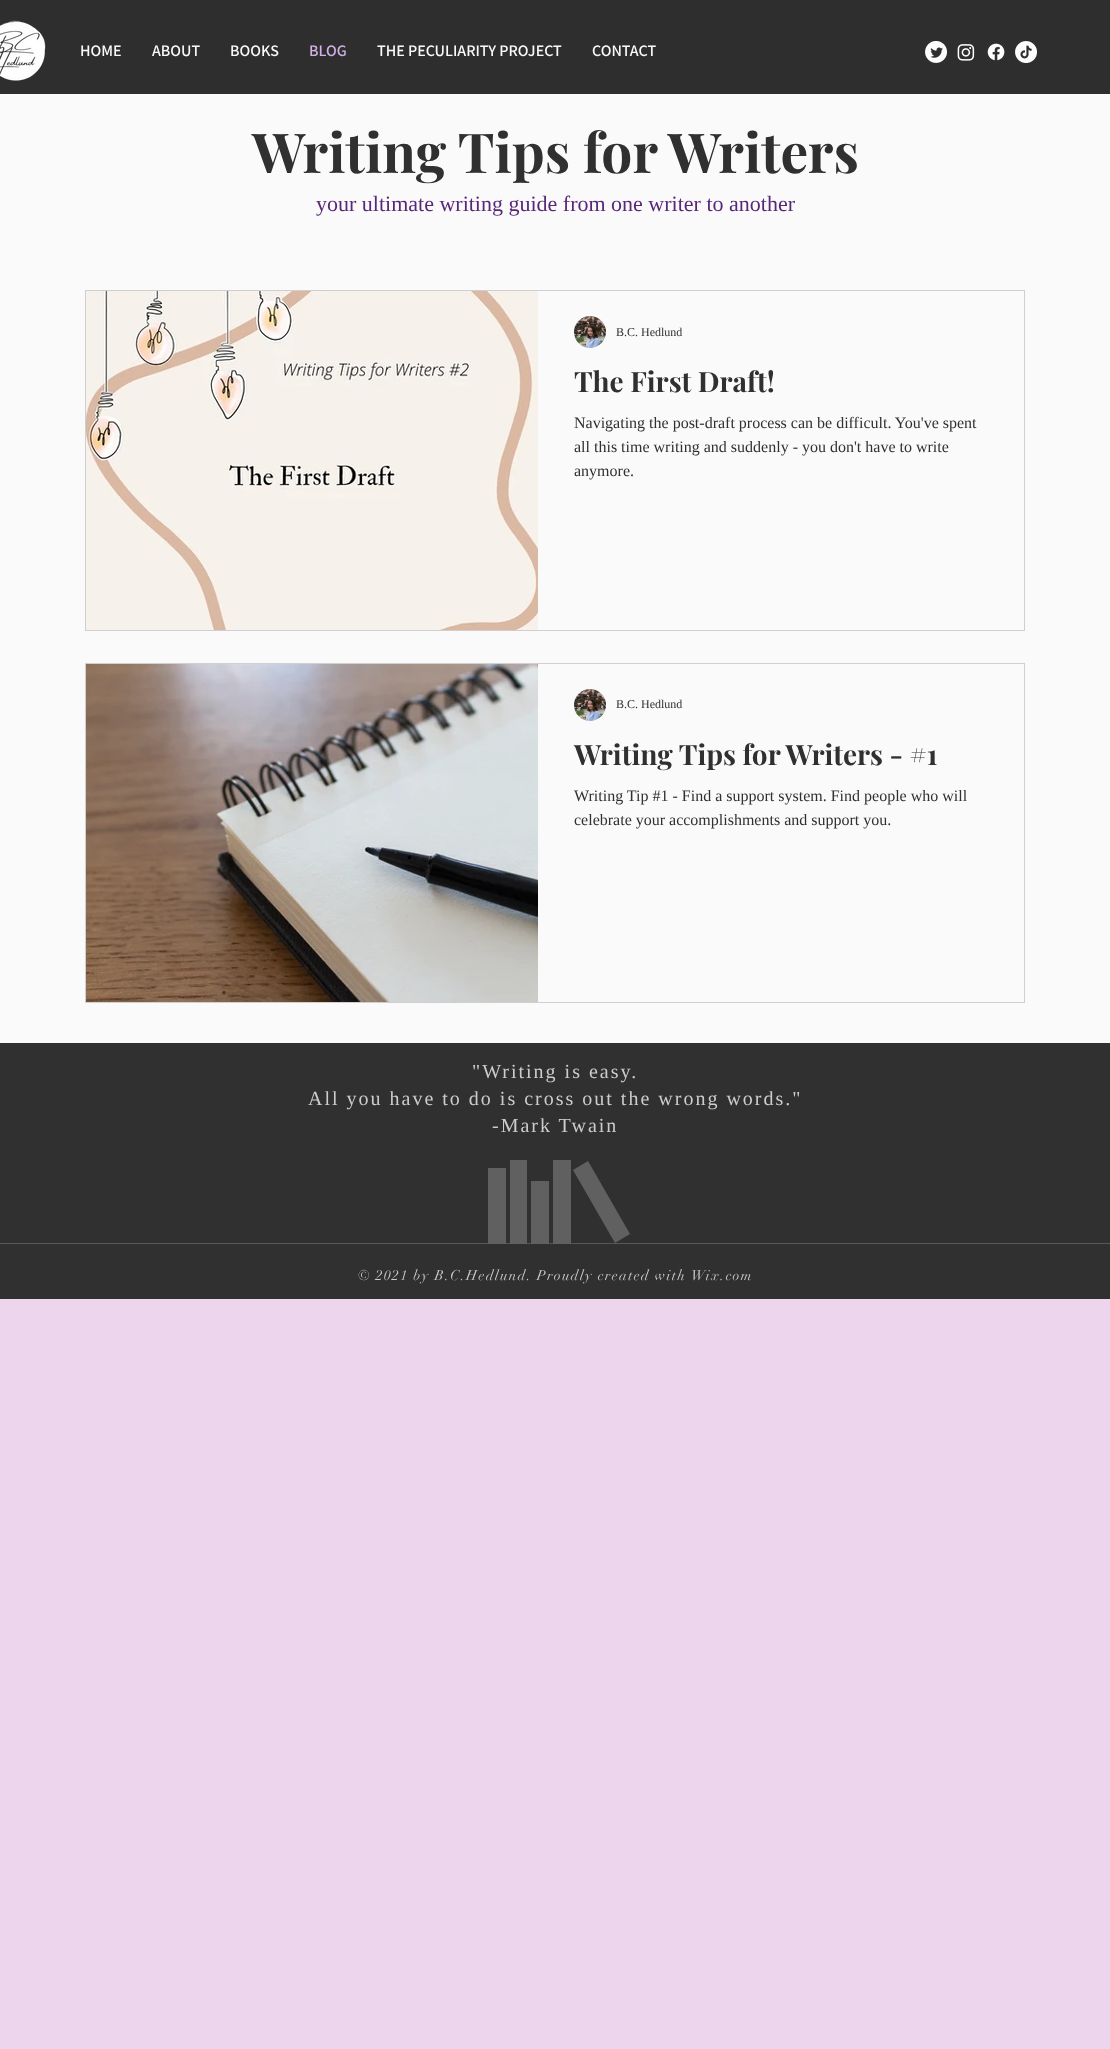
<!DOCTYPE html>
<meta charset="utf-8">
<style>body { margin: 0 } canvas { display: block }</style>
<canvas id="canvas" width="1110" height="2049"></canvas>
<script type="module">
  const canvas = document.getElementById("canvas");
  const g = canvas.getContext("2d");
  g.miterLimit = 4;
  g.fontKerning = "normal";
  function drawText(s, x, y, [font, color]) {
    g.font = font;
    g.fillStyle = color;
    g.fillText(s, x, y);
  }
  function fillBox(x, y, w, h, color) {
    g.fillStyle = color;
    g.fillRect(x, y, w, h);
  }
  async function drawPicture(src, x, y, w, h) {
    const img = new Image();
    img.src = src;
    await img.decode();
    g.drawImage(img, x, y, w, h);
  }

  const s1 = ["600 16px Assistant", "#FAFAFA"];
  const s2 = ["600 16px Assistant", "#D2B2E6"];
  const s3 = ["bold 55px Playfair Display", "#303030"];
  const s4 = ["22px Liberation Serif", "#592778"];
  const s5 = ["12px Liberation Serif", "#303030"];
  const s6 = ["bold 28px Playfair Display", "#303030"];
  const s7 = ["16px Liberation Serif", "#303030"];
  const s8 = ["20px Liberation Serif", "#CCCCCC"];
  const s9 = ["14px didot", "#CCCCCC"];

  fillBox(0, 0, 1110, 2049, "#EDD5ED");
  fillBox(0, 0, 1110, 94, "#2F2E2E");
  await drawPicture("pic1.png", 0, 20, 46, 61);
  drawText("HOME", 80, 56, s1);
  drawText("ABOUT", 152, 56, s1);
  drawText("BOOKS", 230, 56, s1);
  drawText("BLOG", 309, 56, s2);
  drawText("THE PECULIARITY PROJECT", 377, 56, s1);
  drawText("CONTACT", 592, 56, s1);
  await drawPicture("pic2.png", 925, 41, 22, 22);
  await drawPicture("pic3.png", 957, 44, 18, 17);
  await drawPicture("pic4.png", 987, 43, 18, 18);
  await drawPicture("pic5.png", 1015, 41, 22, 22);
  fillBox(0, 94, 1110, 949, "#FAFAFA");
  drawText("Writing Tips for Writers", 252, 173, s3);
  drawText("your ultimate writing guide from one writer to another", 316, 211, s4);
  g.strokeStyle = "#CFCFCF";
  g.strokeRect(85.5, 290.5, 939, 340);
  await drawPicture("pic6.png", 86, 291, 452, 339);
  await drawPicture("pic7.png", 574, 316, 32, 32);
  drawText("B.C. Hedlund", 616, 336, s5);
  drawText("The First Draft!", 574, 392, s6);
  drawText("Navigating the post-draft process can be difficult. You've spent", 574, 428, s7);
  drawText("all this time writing and suddenly - you don't have to write", 574, 452, s7);
  drawText("anymore.", 574, 476, s7);
  g.strokeRect(85.5, 663.5, 939, 339);
  await drawPicture("pic8.png", 86, 664, 452, 338);
  await drawPicture("pic7.png", 574, 689, 32, 32);
  drawText("B.C. Hedlund", 616, 708, s5);
  drawText("Writing Tips for Writers - #1", 574, 765, s6);
  drawText("Writing Tip #1 - Find a support system. Find people who will", 574, 801, s7);
  drawText("celebrate your accomplishments and support you.", 574, 825, s7);
  fillBox(0, 1043, 1110, 256, "#303030");
  g.letterSpacing = "2px";
  drawText("\"Writing is easy.", 472, 1078, s8);
  drawText("All you have to do is cross out the wrong words.\"", 308, 1105, s8);
  drawText("-Mark Twain", 492, 1132, s8);
  fillBox(0, 1243, 1110, 1, "#585858");
  fillBox(488, 1168, 18, 76, "#606060");
  fillBox(510, 1160, 17, 84, "#606060");
  fillBox(531, 1181, 18, 63, "#606060");
  fillBox(553, 1160, 18, 84, "#606060");
  g.beginPath();
  g.moveTo(630, 1234);
  g.lineTo(615, 1243);
  g.lineTo(573, 1170);
  g.lineTo(588, 1161);
  g.closePath();
  g.fill();
  g.letterSpacing = "1.4px";
  drawText("© 2021 by B.C.Hedlund. Proudly created with Wix.com", 358, 1280, s9);
</script>
